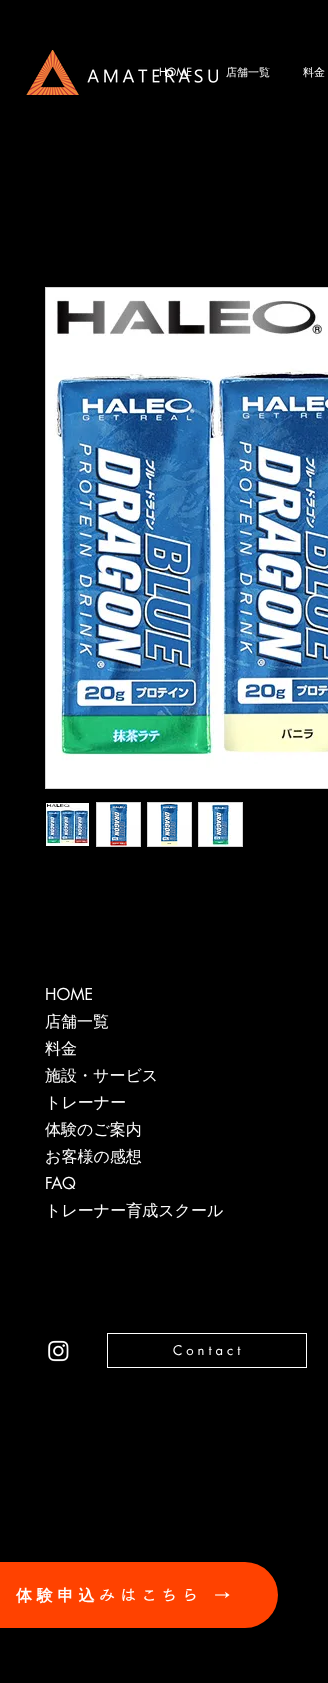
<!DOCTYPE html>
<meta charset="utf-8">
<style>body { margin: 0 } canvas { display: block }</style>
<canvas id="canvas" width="328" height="1683"></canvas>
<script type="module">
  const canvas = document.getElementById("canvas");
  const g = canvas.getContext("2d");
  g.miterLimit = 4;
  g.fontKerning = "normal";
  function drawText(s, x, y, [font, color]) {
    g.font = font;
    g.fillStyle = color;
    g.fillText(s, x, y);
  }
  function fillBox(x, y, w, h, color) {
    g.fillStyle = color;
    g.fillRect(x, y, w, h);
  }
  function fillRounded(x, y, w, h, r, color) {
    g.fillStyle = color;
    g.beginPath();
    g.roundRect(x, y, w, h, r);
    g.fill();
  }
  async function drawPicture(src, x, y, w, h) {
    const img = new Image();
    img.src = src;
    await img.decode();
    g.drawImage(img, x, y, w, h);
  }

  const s1 = ["11px futura", "#FFFFFF"];
  const s2 = ["500 11px WenQuanYi Zen Hei", "#FFFFFF"];
  const s3 = ["16px futura", "#FFFFFF"];
  const s4 = ["500 16px WenQuanYi Zen Hei", "#FFFFFF"];
  const s5 = ["13px futura", "#FFFFFF"];
  const s6 = ["bold 16px WenQuanYi Zen Hei", "#FFFFFF"];
  const s7 = ["600 16px 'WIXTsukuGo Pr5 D'", "#FFFFFF"];

  fillBox(0, 0, 328, 1683, "#000000");
  await drawPicture("pic1.png", 26, 50, 192, 45);
  drawText("HOME", 159, 76, s1);
  drawText("店舗一覧", 226, 76, s2);
  drawText("料金", 303, 76, s2);
  g.strokeStyle = "#D4D4D4";
  g.strokeRect(45.5, 287.5, 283, 501);
  await drawPicture("pic2.png", 46, 288, 282, 500);
  await drawPicture("pic3.png", 46, 803, 43, 43);
  fillBox(96, 802, 45, 45, "#D4D4D4");
  await drawPicture("pic4.png", 97, 803, 43, 43);
  fillBox(147, 802, 45, 45, "#D4D4D4");
  await drawPicture("pic5.png", 148, 803, 43, 43);
  fillBox(198, 802, 45, 45, "#D4D4D4");
  await drawPicture("pic6.png", 199, 803, 43, 43);
  drawText("HOME", 45, 1000, s3);
  drawText("店舗一覧", 45, 1027, s4);
  drawText("料金", 45, 1054, s4);
  drawText("施設・サービス", 45, 1081, s4);
  drawText("トレーナー", 45, 1108, s4);
  drawText("体験のご案内", 45, 1135, s4);
  drawText("お客様の感想", 45, 1162, s4);
  drawText("FAQ", 45, 1189, s3);
  drawText("トレーナー育成スクール", 45, 1216, s4);
  await drawPicture("pic7.png", 48, 1340, 21, 22);
  g.strokeStyle = "#FFFFFF";
  g.strokeRect(107.5, 1333.5, 199, 34);
  drawText("C o n t a c t", 173, 1355, s5);
  fillRounded(-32, 1562, 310, 66, 33, "#FF4200");
  drawText("体 験 申 込", 16, 1601, s6);
  drawText("み", 99, 1601, s7);
  drawText("は", 120, 1601, s7);
  drawText("こ", 141, 1601, s7);
  drawText("ち", 161, 1601, s7);
  drawText("ら", 182, 1601, s7);
  drawText("→", 214, 1601, s6);
</script>
